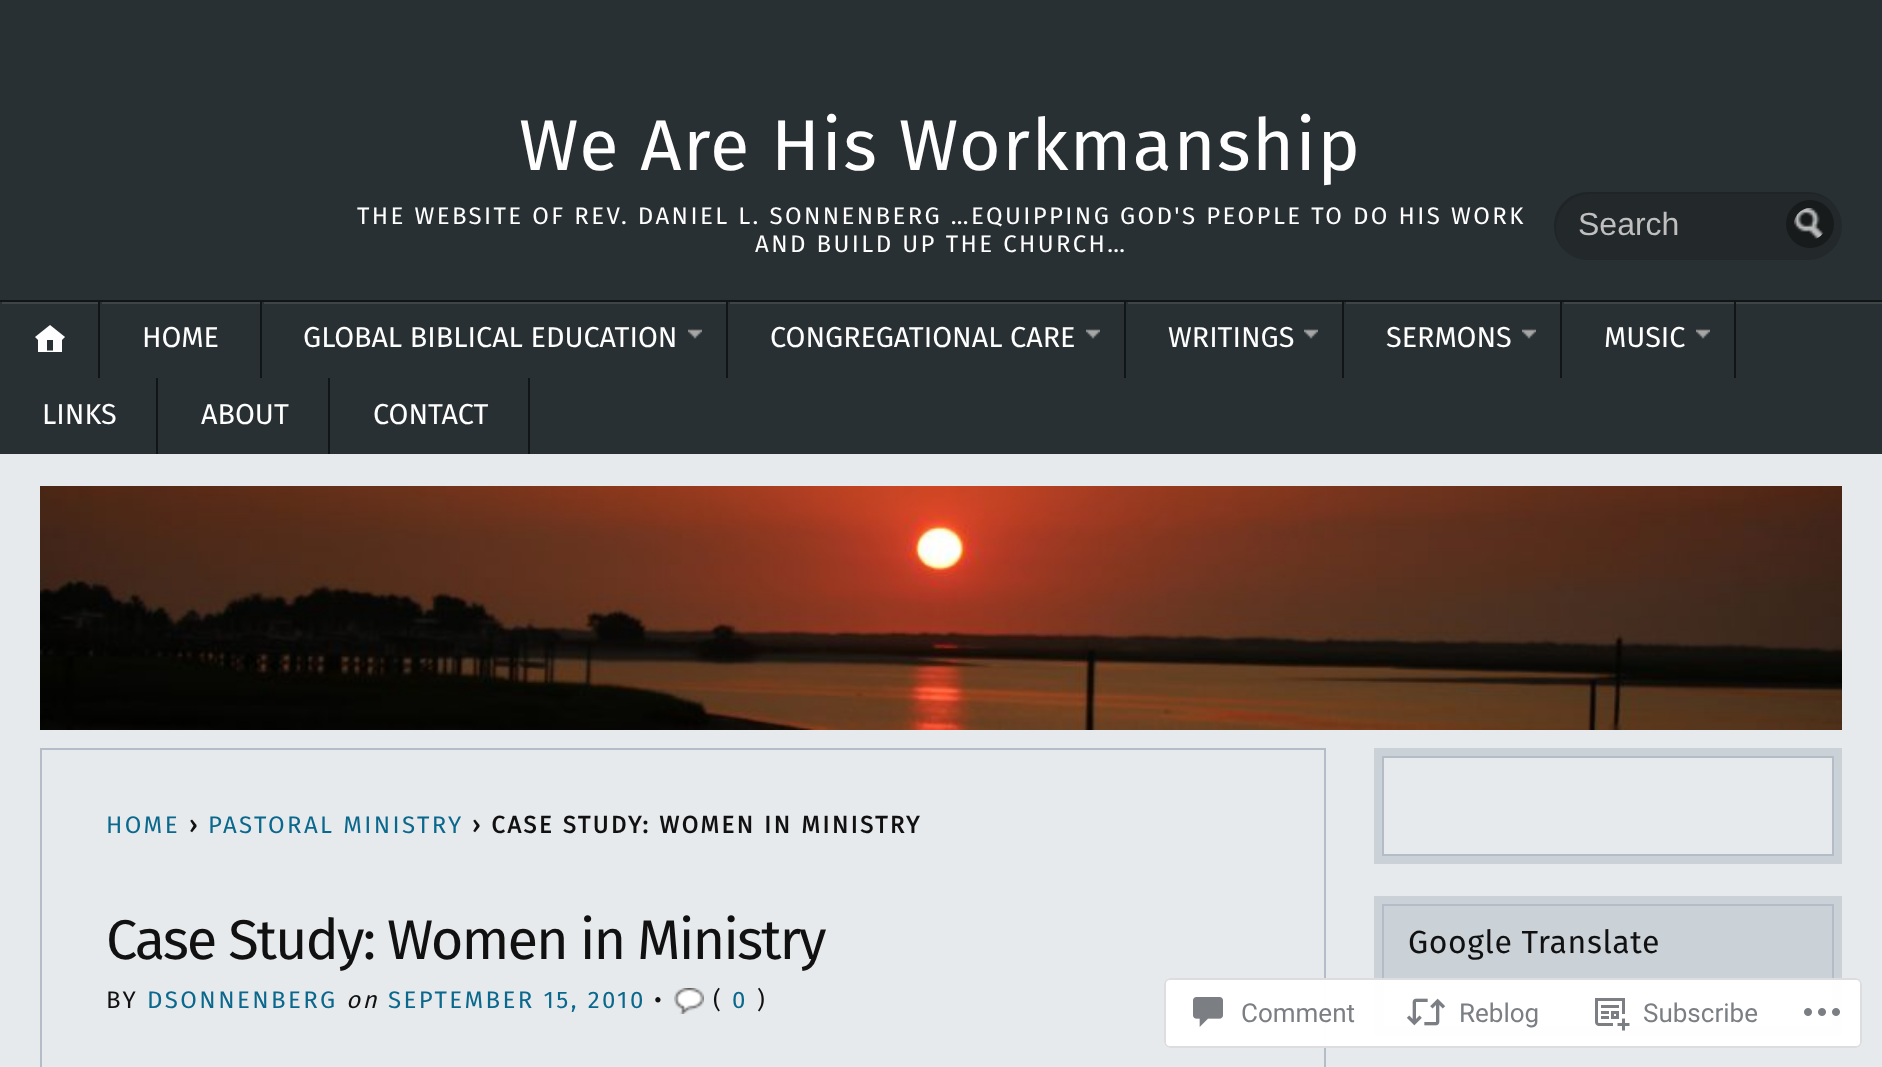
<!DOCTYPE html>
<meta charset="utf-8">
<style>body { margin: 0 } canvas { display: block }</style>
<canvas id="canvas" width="1882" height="1067"></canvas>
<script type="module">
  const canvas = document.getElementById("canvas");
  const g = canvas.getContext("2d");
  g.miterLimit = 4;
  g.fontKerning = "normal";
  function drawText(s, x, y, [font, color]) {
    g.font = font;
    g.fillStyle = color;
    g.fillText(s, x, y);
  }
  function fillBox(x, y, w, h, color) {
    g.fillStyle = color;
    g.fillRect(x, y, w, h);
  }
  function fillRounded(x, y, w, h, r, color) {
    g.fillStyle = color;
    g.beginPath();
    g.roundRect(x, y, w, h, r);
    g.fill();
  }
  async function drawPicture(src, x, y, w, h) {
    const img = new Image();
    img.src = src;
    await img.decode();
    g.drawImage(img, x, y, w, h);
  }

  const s1 = ["72px Fira Sans", "#FEFEFE"];
  const s2 = ["24px Fira Sans", "#FEFEFE"];
  const s3 = ["32px Arimo", "#BFBFBF"];
  const s4 = ["28.75px Fira Sans", "#FEFEFE"];
  const s5 = ["24px Fira Sans", "#0B688D"];
  const s6 = ["bold 24px Fira Sans", "#111111"];
  const s7 = ["56px Fira Sans", "#111111"];
  const s8 = ["24px Fira Sans", "#111111"];
  const s9 = ["italic 24px Fira Sans", "#111111"];
  const s10 = ["32px Fira Sans", "#111111"];
  const s11 = ["26px Roboto", "#7B7F84"];

  fillBox(0, 0, 1882, 1067, "#E7EAED");
  fillBox(0, 0, 1882, 454, "#293033");
  g.letterSpacing = "1.4px";
  drawText("We Are His Workmanship", 519, 170, s1);
  g.letterSpacing = "2.4px";
  drawText("THE WEBSITE OF REV. DANIEL L. SONNENBERG …EQUIPPING GOD'S PEOPLE TO DO HIS WORK", 357, 224, s2);
  drawText("AND BUILD UP THE CHURCH…", 755, 252, s2);
  fillRounded(1554, 192, 288, 68, 34, "#23292B");
  g.fillStyle = "rgba(0, 0, 0, 0.1)";
  g.beginPath();
  g.moveTo(1590, 194);
  g.lineTo(1810, 194);
  g.bezierCurveTo(1818, 194, 1826, 197, 1832, 202);
  g.bezierCurveTo(1826, 196, 1817, 192, 1808, 192);
  g.lineTo(1588, 192);
  g.bezierCurveTo(1569, 192, 1554, 207, 1554, 226);
  g.bezierCurveTo(1554, 235, 1558, 244, 1564, 250);
  g.bezierCurveTo(1546, 228, 1561, 194, 1590, 194);
  g.closePath();
  g.fill();
  g.letterSpacing = "0px";
  drawText("Search", 1578, 235, s3);
  g.fillStyle = "#171B1C";
  g.beginPath();
  g.arc(1810, 224, 24, 0, Math.PI * 2);
  g.fill();
  await drawPicture("pic1.png", 1794, 208, 30, 31);
  g.save();
  g.beginPath();
  g.rect(0, 302, 1882, 152);
  g.clip();
  g.fillStyle = "#3E4547";
  g.beginPath();
  g.moveTo(-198, 104);
  g.lineTo(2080, 104);
  g.lineTo(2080, 652);
  g.lineTo(-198, 652);
  g.closePath();
  g.moveTo(0, 304);
  g.lineTo(1882, 304);
  g.bezierCurveTo(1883, 304, 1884, 305, 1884, 306);
  g.lineTo(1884, 458);
  g.bezierCurveTo(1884, 459, 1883, 460, 1882, 460);
  g.lineTo(0, 460);
  g.bezierCurveTo(-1, 460, -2, 459, -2, 458);
  g.lineTo(-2, 306);
  g.bezierCurveTo(-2, 305, -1, 304, 0, 304);
  g.closePath();
  g.fill("evenodd");
  g.restore();
  fillBox(0, 300, 1882, 2, "#121516");
  fillBox(98, 302, 2, 76, "#121516");
  fillBox(0, 302, 2, 2, "#293033");
  await drawPicture("pic2.png", 35, 325, 30, 27);
  fillBox(260, 302, 2, 76, "#121516");
  fillBox(100, 302, 2, 2, "#293033");
  drawText("HOME", 142, 347, s4);
  fillBox(726, 302, 2, 76, "#121516");
  fillBox(262, 302, 2, 2, "#293033");
  drawText("GLOBAL BIBLICAL EDUCATION", 303, 347, s4);
  await drawPicture("pic3.png", 688, 329, 14, 10);
  fillBox(1124, 302, 2, 76, "#121516");
  fillBox(728, 302, 2, 2, "#293033");
  drawText("CONGREGATIONAL CARE", 770, 347, s4);
  await drawPicture("pic3.png", 1086, 329, 14, 10);
  fillBox(1342, 302, 2, 76, "#121516");
  fillBox(1126, 302, 2, 2, "#293033");
  drawText("WRITINGS", 1168, 347, s4);
  await drawPicture("pic3.png", 1304, 329, 14, 10);
  fillBox(1560, 302, 2, 76, "#121516");
  fillBox(1344, 302, 2, 2, "#293033");
  drawText("SERMONS", 1386, 347, s4);
  await drawPicture("pic3.png", 1522, 329, 14, 10);
  fillBox(1734, 302, 2, 76, "#121516");
  fillBox(1562, 302, 2, 2, "#293033");
  drawText("MUSIC", 1604, 347, s4);
  await drawPicture("pic3.png", 1696, 329, 14, 10);
  fillBox(156, 378, 2, 76, "#121516");
  drawText("LINKS", 42, 424, s4);
  fillBox(328, 378, 2, 76, "#121516");
  drawText("ABOUT", 201, 424, s4);
  fillBox(528, 378, 2, 76, "#121516");
  drawText("CONTACT", 373, 424, s4);
  await drawPicture("pic4.png", 40, 486, 1802, 244);
  g.strokeStyle = "#B4BDC7";
  g.lineWidth = 2;
  g.strokeRect(41, 749, 1284, 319);
  g.letterSpacing = "2.4px";
  drawText("HOME", 106, 833, s5);
  drawText("›", 189, 833, s6);
  drawText("PASTORAL MINISTRY", 208, 833, s5);
  drawText("› CASE STUDY: WOMEN IN MINISTRY", 472, 833, s6);
  g.letterSpacing = "-2px";
  drawText("Case Study: Women in Ministry", 106, 959, s7);
  g.letterSpacing = "2.4px";
  drawText("BY", 106, 1008, s8);
  drawText("DSONNENBERG", 147, 1008, s5);
  drawText("on", 346, 1008, s9);
  drawText("SEPTEMBER 15, 2010", 388, 1008, s5);
  drawText("•", 654, 1008, s8);
  await drawPicture("pic5.png", 674, 988, 30, 26);
  drawText("(", 713, 1008, s8);
  drawText("0", 732, 1008, s5);
  drawText(")", 757, 1008, s8);
  fillBox(1374, 748, 468, 116, "#CAD1D7");
  g.fillStyle = "#E7EAED";
  g.beginPath();
  g.rect(1383, 757, 450, 98);
  g.fill();
  g.stroke();
  fillBox(1374, 896, 468, 140, "#CAD1D7");
  fillBox(1384, 978, 448, 48, "#E7EAED");
  g.strokeRect(1383, 905, 450, 122);
  g.letterSpacing = "0.6px";
  drawText("Google Translate", 1408, 953, s10);
  fillRounded(1164, 978, 698, 70, 6, "rgba(255, 255, 255, 0.98)");
  g.beginPath();
  g.roundRect(1165, 979, 696, 68, 5);
  g.strokeStyle = "rgba(220, 220, 222, 0.98)";
  g.stroke();
  await drawPicture("pic6.png", 1193, 997, 30, 30);
  g.letterSpacing = "0px";
  drawText("Comment", 1241, 1022, s11);
  await drawPicture("pic7.png", 1406, 998, 40, 28);
  drawText("Reblog", 1459, 1022, s11);
  await drawPicture("pic8.png", 1595, 998, 35, 33);
  drawText("Subscribe", 1643, 1022, s11);
  await drawPicture("pic9.png", 1804, 1008, 36, 8);
</script>
